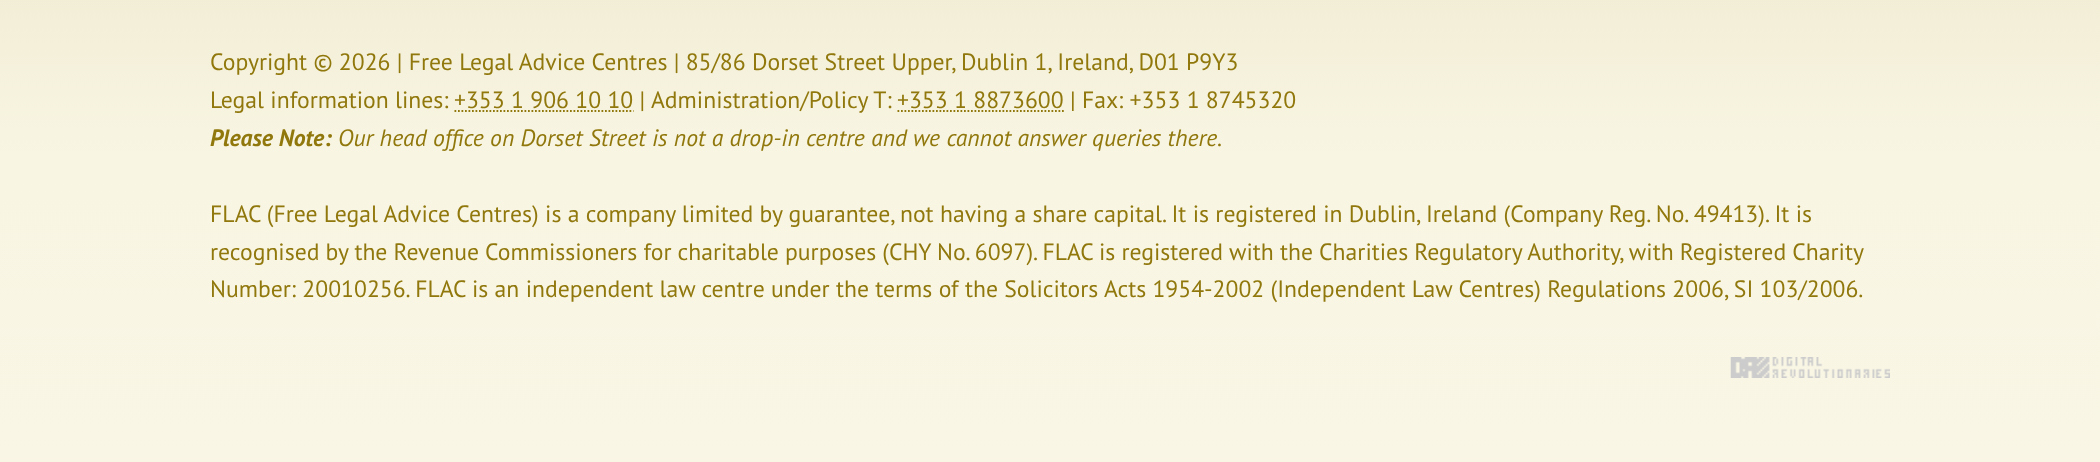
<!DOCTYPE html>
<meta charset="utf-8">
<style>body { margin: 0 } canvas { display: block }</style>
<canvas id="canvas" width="2100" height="462"></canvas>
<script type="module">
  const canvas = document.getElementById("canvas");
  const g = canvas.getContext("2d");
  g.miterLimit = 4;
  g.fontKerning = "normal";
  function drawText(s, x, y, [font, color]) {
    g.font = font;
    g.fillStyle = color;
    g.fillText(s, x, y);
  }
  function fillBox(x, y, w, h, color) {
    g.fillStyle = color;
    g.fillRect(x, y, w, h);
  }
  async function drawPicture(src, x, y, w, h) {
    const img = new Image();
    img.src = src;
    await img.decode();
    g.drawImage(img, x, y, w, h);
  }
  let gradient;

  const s1 = ["23.7px PT Sans", "#91780D"];
  const s2 = ["italic bold 23.7px PT Sans", "#91780D"];
  const s3 = ["italic 23.7px PT Sans", "#91780D"];

  fillBox(0, 0, 2100, 462, "#FFFFFF");
  gradient = g.createLinearGradient(1050, -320, 1050, 462);
  gradient.addColorStop(0, "#E8E2C0");
  gradient.addColorStop(0.12, "#EAE4C4");
  gradient.addColorStop(0.61, "#F8F5E3");
  gradient.addColorStop(1, "#F9F6E5");
  g.fillStyle = gradient;
  g.fillRect(0, 0, 2100, 462);
  drawText("Copyright © 2026 | Free Legal Advice Centres | 85/86 Dorset Street Upper, Dublin 1, Ireland, D01 P9Y3", 210, 70, s1);
  drawText("Legal information lines:", 210, 108, s1);
  g.beginPath();
  g.moveTo(454.5, 111);
  g.lineTo(633.5, 111);
  g.strokeStyle = "#91780D";
  g.lineWidth = 1.8;
  g.setLineDash([1.75, 1.75]);
  g.stroke();
  drawText("+353 1 906 10 10 |", 454, 108, s1);
  drawText("Administration/Policy T:", 651, 108, s1);
  g.beginPath();
  g.moveTo(897.5, 111);
  g.lineTo(1064, 111);
  g.stroke();
  drawText("+353 1 8873600 | Fax: +353 1 8745320", 897, 108, s1);
  drawText("Please Note:", 210, 146, s2);
  drawText("Our head office on Dorset Street is not a drop-in centre and we cannot answer queries there.", 338, 146, s3);
  drawText("FLAC (Free Legal Advice Centres) is a company limited by guarantee, not having a share capital. It is registered in Dublin, Ireland (Company Reg. No. 49413). It is", 210, 222, s1);
  g.wordSpacing = "-0.2px";
  drawText("recognised by the Revenue Commissioners for charitable purposes (CHY No. 6097). FLAC is registered with the Charities Regulatory Authority, with Registered Charity", 210, 260, s1);
  g.wordSpacing = "0px";
  drawText("Number: 20010256. FLAC is an independent law centre under the terms of the Solicitors Acts 1954-2002 (Independent Law Centres) Regulations 2006, SI 103/2006.", 210, 297, s1);
  await drawPicture("pic1.png", 1730, 357, 160, 21);
</script>
